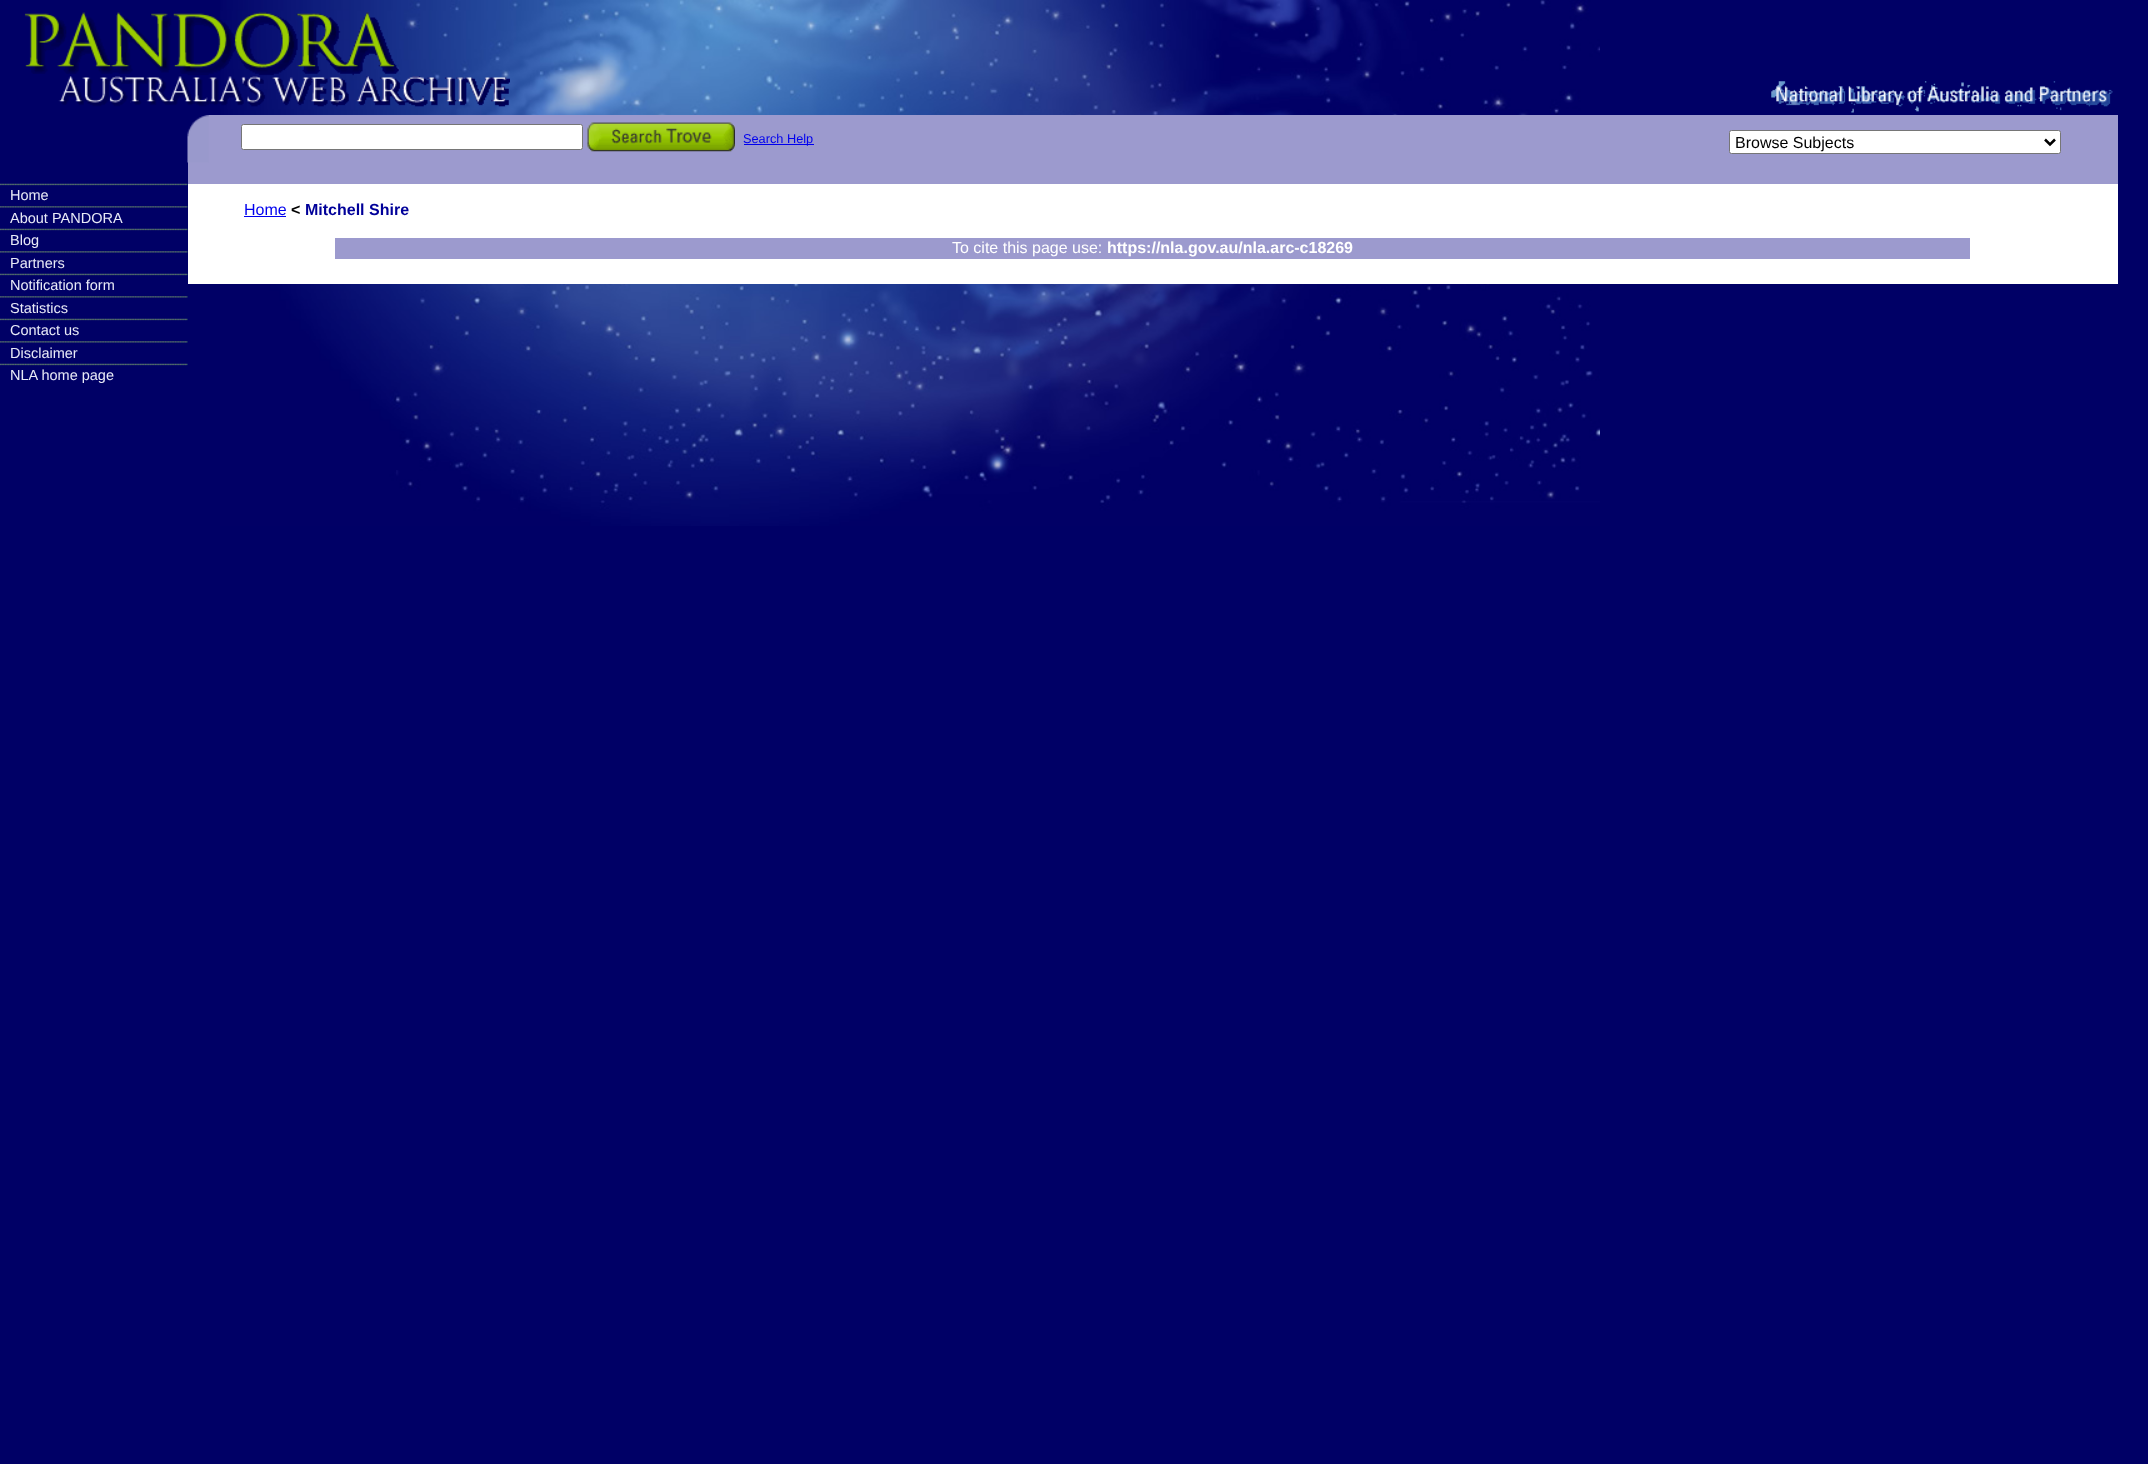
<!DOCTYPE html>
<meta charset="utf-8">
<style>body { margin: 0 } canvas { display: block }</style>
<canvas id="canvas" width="2148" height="1464"></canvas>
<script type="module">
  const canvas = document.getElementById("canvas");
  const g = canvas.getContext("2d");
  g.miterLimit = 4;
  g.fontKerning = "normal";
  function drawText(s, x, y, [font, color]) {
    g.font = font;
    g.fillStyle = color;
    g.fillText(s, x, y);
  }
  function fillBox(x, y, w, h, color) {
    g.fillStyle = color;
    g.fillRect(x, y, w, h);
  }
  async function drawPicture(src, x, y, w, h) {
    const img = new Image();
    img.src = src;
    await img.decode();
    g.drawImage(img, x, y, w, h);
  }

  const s1 = ["12.75px Liberation Sans", "#0000EE"];
  const s2 = ["16px Liberation Sans", "#000000"];
  const s3 = ["14.5px Liberation Sans", "#E8EAF7"];
  const s4 = ["16px Liberation Sans", "#0000EE"];
  const s5 = ["bold 16px Liberation Sans", "#000000"];
  const s6 = ["bold 16px Liberation Sans", "#000099"];
  const s7 = ["16px Liberation Sans", "#FFFFFF"];
  const s8 = ["bold 16px Liberation Sans", "#FFFFFF"];

  fillBox(0, 0, 2148, 1464, "#000066");
  await drawPicture("pic1.png", 220, 0, 1380, 526);
  await drawPicture("pic2.png", 24, 12, 486, 95);
  await drawPicture("pic3.png", 1771, 81, 342, 32);
  fillBox(188, 115, 1930, 69, "#9C9ACE");
  await drawPicture("pic4.png", 187, 115, 22, 48);
  g.fillStyle = "#FFFFFF";
  g.beginPath();
  g.roundRect(241.5, 124.5, 341, 25, 2);
  g.fill();
  g.strokeStyle = "#767676";
  g.stroke();
  await drawPicture("pic5.png", 587, 122, 148, 30);
  fillBox(744, 144, 70, 1, "#0000EE");
  drawText("Search Help", 743, 143, s1);
  g.fillStyle = "#FFFFFF";
  g.beginPath();
  g.roundRect(1729.5, 130.5, 331, 23, 2);
  g.fill();
  g.stroke();
  g.beginPath();
  g.moveTo(2045, 139.5);
  g.lineTo(2050, 144.5);
  g.lineTo(2055, 139.5);
  g.strokeStyle = "#000000";
  g.lineWidth = 2.5;
  g.stroke();
  drawText("Browse Subjects", 1735, 148, s2);
  await drawPicture("pic6.png", 0, 183, 188, 3);
  drawText("Home", 10, 200, s3);
  await drawPicture("pic7.png", 0, 206, 188, 2);
  drawText("About PANDORA", 10, 223, s3);
  await drawPicture("pic6.png", 0, 228, 188, 3);
  drawText("Blog", 10, 245, s3);
  await drawPicture("pic7.png", 0, 251, 188, 2);
  drawText("Partners", 10, 268, s3);
  await drawPicture("pic6.png", 0, 273, 188, 3);
  drawText("Notification form", 10, 290, s3);
  await drawPicture("pic7.png", 0, 296, 188, 2);
  drawText("Statistics", 10, 313, s3);
  await drawPicture("pic6.png", 0, 318, 188, 3);
  drawText("Contact us", 10, 335, s3);
  await drawPicture("pic7.png", 0, 341, 188, 2);
  drawText("Disclaimer", 10, 358, s3);
  await drawPicture("pic6.png", 0, 363, 188, 3);
  drawText("NLA home page", 10, 380, s3);
  fillBox(188, 184, 1930, 100, "#FFFFFF");
  drawText("Home", 244, 215, s4);
  fillBox(244, 216, 42, 1, "#0000EE");
  drawText("<", 291, 215, s5);
  drawText("Mitchell Shire", 305, 215, s6);
  fillBox(335, 238, 1635, 21, "#9C9ACE");
  drawText("To cite this page use:", 952, 253, s7);
  drawText("https://nla.gov.au/nla.arc-c18269", 1107, 253, s8);
</script>
